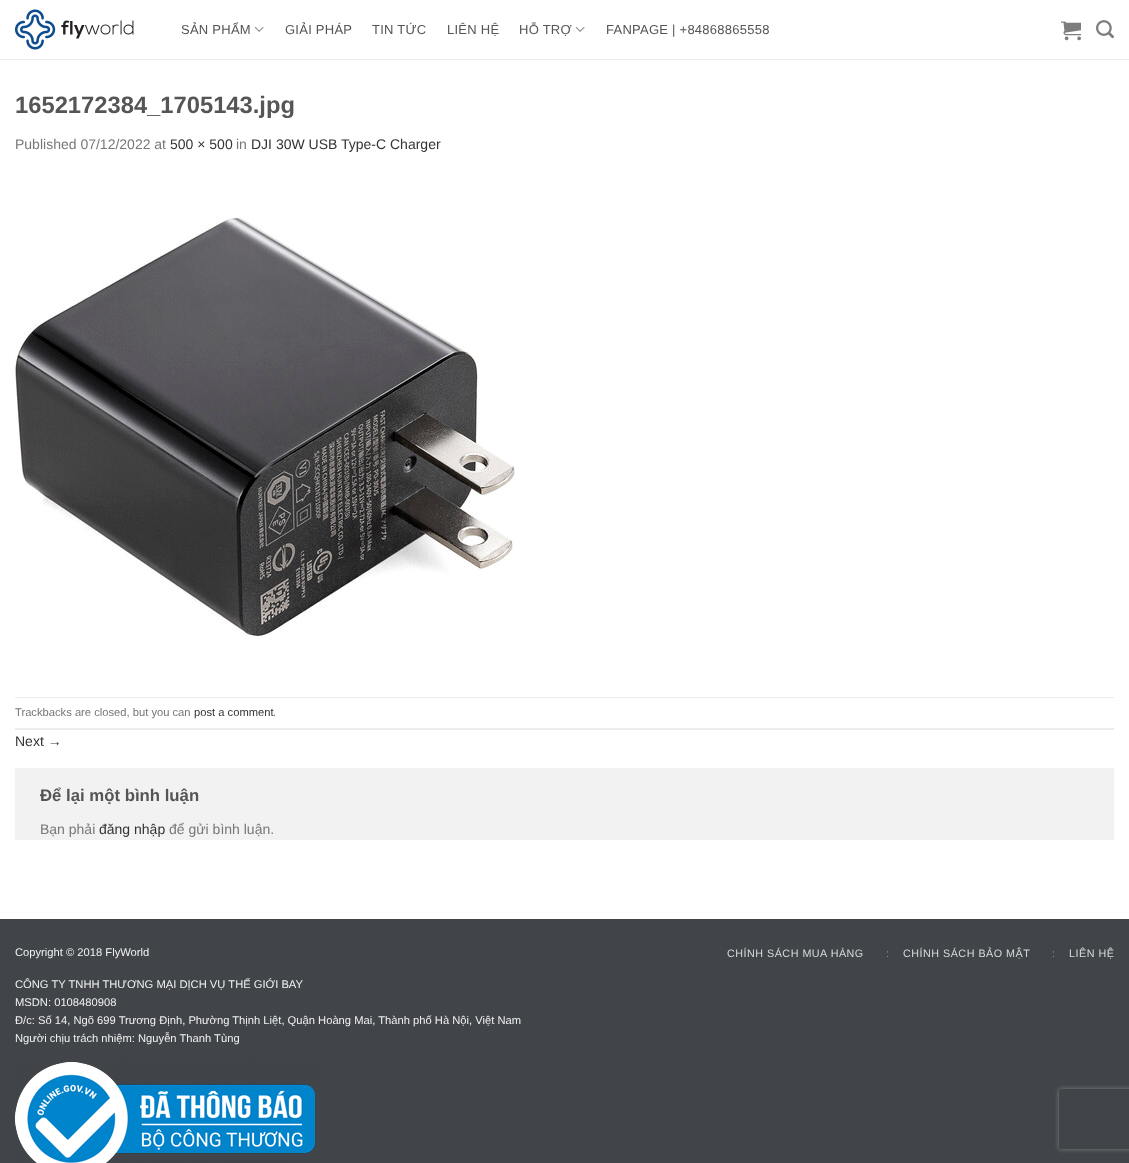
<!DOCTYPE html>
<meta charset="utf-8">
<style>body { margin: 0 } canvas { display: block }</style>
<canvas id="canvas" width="1129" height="1163"></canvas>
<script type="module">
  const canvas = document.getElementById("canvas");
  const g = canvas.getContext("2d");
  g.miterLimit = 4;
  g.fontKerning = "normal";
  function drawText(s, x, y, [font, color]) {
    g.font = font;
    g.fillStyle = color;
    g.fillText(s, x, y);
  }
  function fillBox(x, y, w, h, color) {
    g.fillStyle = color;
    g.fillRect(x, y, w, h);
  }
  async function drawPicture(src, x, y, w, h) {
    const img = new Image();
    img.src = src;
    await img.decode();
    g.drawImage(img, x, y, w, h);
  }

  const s1 = ["13px Liberation Sans", "#555555"];
  const s2 = ["bold 23.75px Liberation Sans", "#555555"];
  const s3 = ["14px Liberation Sans", "#777777"];
  const s4 = ["14px Liberation Sans", "#333333"];
  const s5 = ["11.2px Liberation Sans", "#777777"];
  const s6 = ["11.2px Liberation Sans", "#333333"];
  const s7 = ["bold 16.75px Liberation Sans", "#555555"];
  const s8 = ["11.2px Liberation Sans", "#F1F1F1"];
  const s9 = ["10.75px Liberation Sans", "#D9DADB"];
  const s10 = ["10.75px Liberation Sans", "#8D9092"];

  fillBox(0, 0, 1129, 1163, "#FFFFFF");
  fillBox(0, 59, 1129, 1, "#ECECEC");
  await drawPicture("pic1.png", 15, 9, 119, 41);
  g.letterSpacing = "0.25px";
  drawText("SẢN PHẨM", 181, 34, s1);
  await drawPicture("pic2.png", 254, 26, 10, 6);
  drawText("GIẢI PHÁP", 285, 34, s1);
  drawText("TIN TỨC", 372, 34, s1);
  drawText("LIÊN HỆ", 447, 34, s1);
  drawText("HỖ TRỢ", 519, 34, s1);
  await drawPicture("pic2.png", 575, 26, 10, 6);
  drawText("FANPAGE | +84868865558", 606, 34, s1);
  await drawPicture("pic3.png", 1061, 21, 20, 20);
  await drawPicture("pic4.png", 1096, 20, 18, 19);
  g.letterSpacing = "0px";
  drawText("1652172384_1705143.jpg", 15, 113, s2);
  drawText("Published 07/12/2022 at", 15, 149, s3);
  drawText("500 × 500", 170, 149, s4);
  drawText("in", 236, 149, s3);
  drawText("DJI 30W USB Type-C Charger", 251, 149, s4);
  await drawPicture("pic5.png", 15, 216, 500, 423);
  fillBox(15, 697, 1099, 1, "#ECECEC");
  fillBox(15, 728, 1099, 2, "#ECECEC");
  drawText("Trackbacks are closed, but you can", 15, 716, s5);
  drawText("post a comment", 194, 716, s6);
  drawText(".", 273, 716, s5);
  drawText("Next →", 15, 746, s4);
  fillBox(15, 768, 1099, 72, "#F2F2F2");
  drawText("Để lại một bình luận", 40, 801, s7);
  drawText("Bạn phải", 40, 834, s3);
  drawText("đăng nhập", 99, 834, s4);
  drawText("để gửi bình luận.", 169, 834, s3);
  fillBox(0, 919, 1129, 244, "#414549");
  drawText("Copyright © 2018 FlyWorld", 15, 956, s8);
  drawText("CÔNG TY TNHH THƯƠNG MẠI DỊCH VỤ THẾ GIỚI BAY", 15, 988, s8);
  drawText("MSDN: 0108480908", 15, 1006, s8);
  drawText("Đ/c: Số 14, Ngõ 699 Trương Định, Phường Thịnh Liệt, Quận Hoàng Mai, Thành phố Hà Nội, Việt Nam", 15, 1024, s8);
  drawText("Người chịu trách nhiệm: Nguyễn Thanh Tùng", 15, 1042, s8);
  await drawPicture("pic6.png", 15, 1062, 300, 101);
  g.letterSpacing = "0.5px";
  drawText("CHÍNH SÁCH MUA HÀNG", 727, 957, s9);
  drawText(":", 886, 957, s10);
  drawText("CHÍNH SÁCH BẢO MẬT", 903, 957, s9);
  drawText(":", 1052, 957, s10);
  drawText("LIÊN HỆ", 1069, 957, s9);
  g.save();
  g.beginPath();
  g.moveTo(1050, 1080);
  g.lineTo(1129, 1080);
  g.lineTo(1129, 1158);
  g.lineTo(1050, 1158);
  g.closePath();
  g.moveTo(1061, 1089);
  g.lineTo(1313, 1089);
  g.bezierCurveTo(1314, 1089, 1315, 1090, 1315, 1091);
  g.lineTo(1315, 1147);
  g.bezierCurveTo(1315, 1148, 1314, 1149, 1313, 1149);
  g.lineTo(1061, 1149);
  g.bezierCurveTo(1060, 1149, 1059, 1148, 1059, 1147);
  g.lineTo(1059, 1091);
  g.bezierCurveTo(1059, 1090, 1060, 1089, 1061, 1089);
  g.closePath();
  g.clip("evenodd");
  g.fillStyle = "#808080";
  g.filter = "blur(2.5px)";
  g.beginPath();
  g.roundRect(1059, 1089, 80, 60, 2);
  g.fill();
  g.filter = "none";
  g.restore();
</script>
